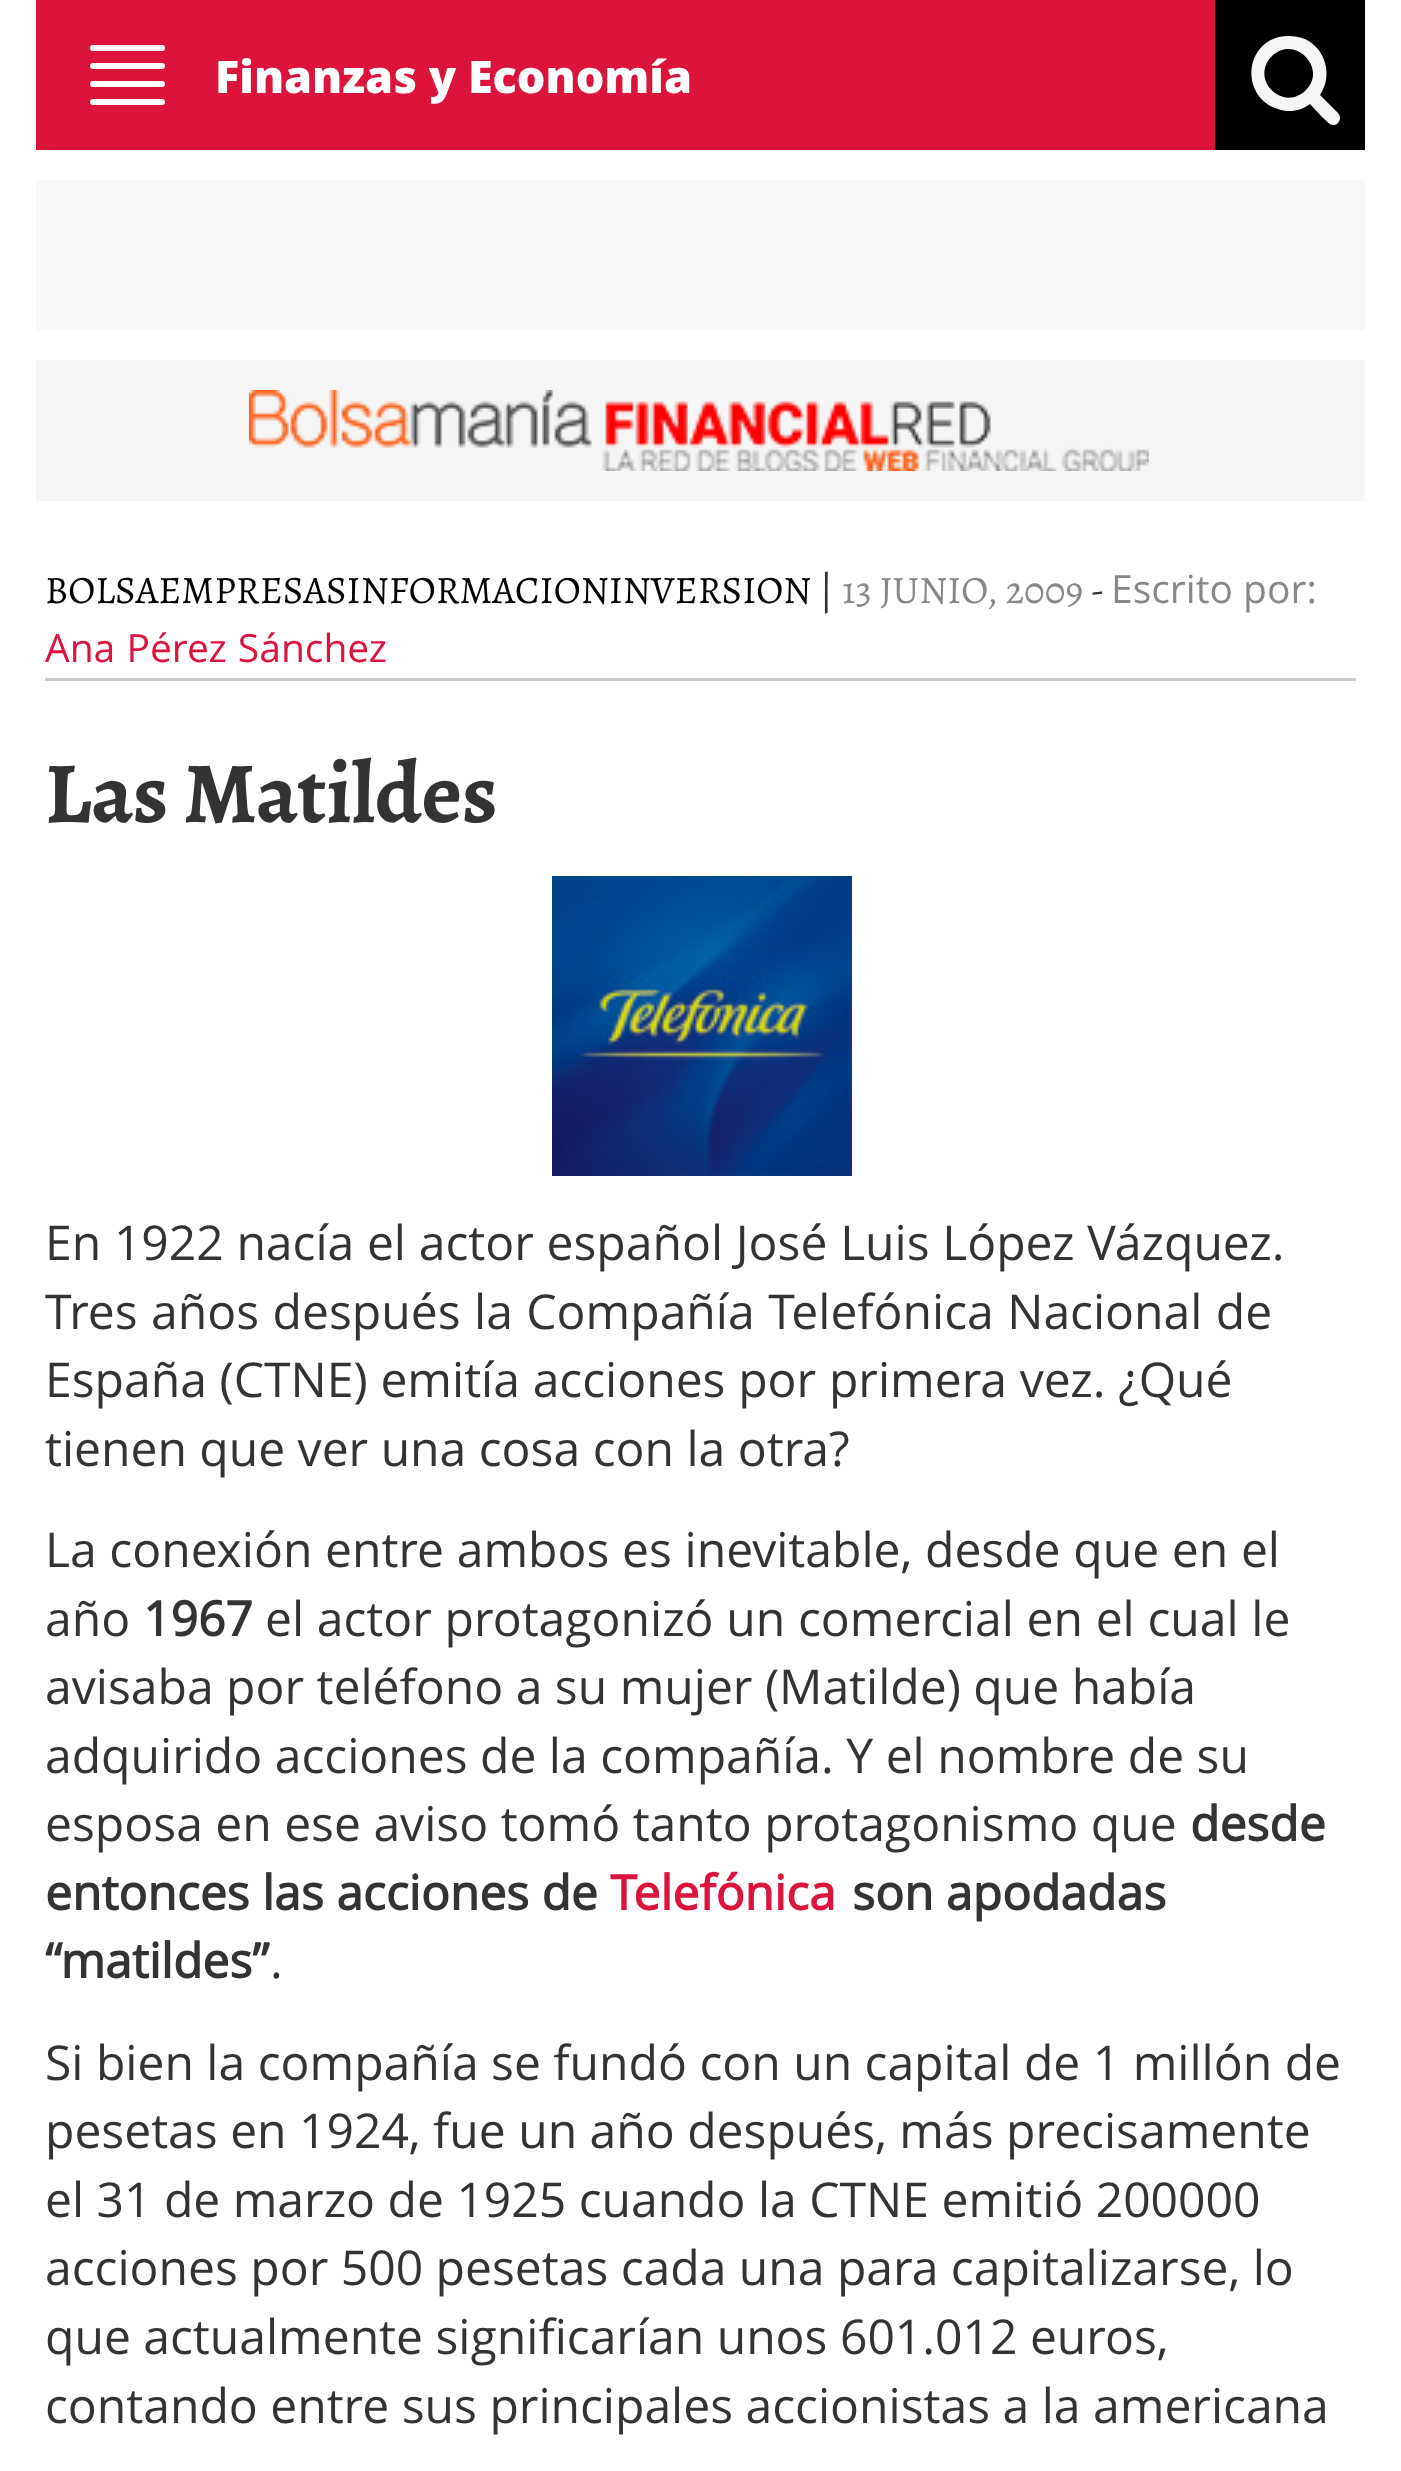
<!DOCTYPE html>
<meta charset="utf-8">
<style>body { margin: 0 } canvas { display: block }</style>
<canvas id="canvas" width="1401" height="2471"></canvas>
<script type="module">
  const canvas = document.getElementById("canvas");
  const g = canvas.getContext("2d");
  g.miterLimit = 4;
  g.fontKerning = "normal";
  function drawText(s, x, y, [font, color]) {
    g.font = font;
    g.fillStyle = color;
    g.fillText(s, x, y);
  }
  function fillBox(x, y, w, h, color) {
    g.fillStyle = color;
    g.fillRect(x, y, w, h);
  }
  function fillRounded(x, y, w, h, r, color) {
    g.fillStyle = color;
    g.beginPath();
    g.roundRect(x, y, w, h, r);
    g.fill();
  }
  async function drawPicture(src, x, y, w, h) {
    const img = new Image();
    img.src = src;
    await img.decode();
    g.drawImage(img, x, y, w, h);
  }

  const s1 = ["800 45px Open Sans", "#FFFFFF"];
  const s2 = ["39px Alegreya", "#000000"];
  const s3 = ["39px Alegreya", "#333333"];
  const s4 = ["39px Alegreya", "#888888"];
  const s5 = ["39px Open Sans", "#888888"];
  const s6 = ["39px Open Sans", "#DC143C"];
  const s7 = ["bold 87px Alegreya", "#333333"];
  const s8 = ["48px Open Sans", "#333333"];
  const s9 = ["bold 48px Open Sans", "#333333"];
  const s10 = ["bold 48px Open Sans", "#DC143C"];

  fillBox(0, 0, 1401, 2471, "#FFFFFF");
  fillBox(36, 0, 1179, 150, "#DC143C");
  fillRounded(90, 45, 75, 6, 3, "#FFFFFF");
  fillRounded(90, 63, 75, 6, 3, "#FFFFFF");
  fillRounded(90, 81, 75, 6, 3, "#FFFFFF");
  fillRounded(90, 99, 75, 6, 3, "#FFFFFF");
  drawText("Finanzas y Economía", 215, 93, s1);
  fillBox(1215, 0, 150, 150, "#000000");
  g.fillStyle = "#F5F5F5";
  g.beginPath();
  g.moveTo(1306, 90);
  g.bezierCurveTo(1328, 68, 1294, 34, 1272, 56);
  g.bezierCurveTo(1249, 79, 1283, 113, 1306, 90);
  g.closePath();
  g.moveTo(1340, 118);
  g.bezierCurveTo(1340, 120, 1339, 122, 1337, 124);
  g.bezierCurveTo(1331, 128, 1326, 120, 1322, 117);
  g.lineTo(1310, 104);
  g.bezierCurveTo(1301, 111, 1289, 113, 1278, 109);
  g.bezierCurveTo(1242, 98, 1243, 46, 1279, 37);
  g.bezierCurveTo(1288, 35, 1297, 36, 1305, 39);
  g.bezierCurveTo(1326, 49, 1333, 76, 1320, 95);
  g.lineTo(1338, 113);
  g.bezierCurveTo(1339, 114, 1340, 116, 1340, 118);
  g.closePath();
  g.fill();
  fillBox(36, 180, 1329, 150, "#F8F8F8");
  fillBox(36, 360, 1329, 141, "#F5F5F5");
  await drawPicture("pic1.png", 249, 390, 900, 81);
  fillBox(45, 678, 1311, 3, "#CCCCCC");
  drawText("BOLSAEMPRESASINFORMACIONINVERSION", 45, 603, s2);
  drawText("|", 819, 603, s3);
  drawText("13 JUNIO, 2009", 842, 603, s4);
  drawText("-", 1091, 603, s3);
  drawText("Escrito por:", 1111, 603, s5);
  g.wordSpacing = "1px";
  drawText("Ana Pérez Sánchez", 45, 662, s6);
  g.wordSpacing = "0px";
  drawText("Las Matildes", 45, 822, s7);
  await drawPicture("pic2.png", 552, 876, 300, 300);
  g.wordSpacing = "0.25px";
  drawText("En 1922 nacía el actor español José Luis López Vázquez.", 45, 1260, s8);
  g.wordSpacing = "1px";
  drawText("Tres años después la Compañía Telefónica Nacional de", 45, 1329, s8);
  g.wordSpacing = "0.25px";
  drawText("España (CTNE) emitía acciones por primera vez. ¿Qué", 45, 1397, s8);
  g.wordSpacing = "0px";
  drawText("tienen que ver una cosa con la otra?", 45, 1466, s8);
  g.wordSpacing = "0.25px";
  drawText("La conexión entre ambos es inevitable, desde que en el", 45, 1567, s8);
  g.wordSpacing = "0px";
  drawText("año", 45, 1636, s8);
  drawText("1967", 143, 1636, s9);
  g.wordSpacing = "0.25px";
  drawText("el actor protagonizó un comercial en el cual le", 265, 1636, s8);
  g.wordSpacing = "0px";
  drawText("avisaba por teléfono a su mujer (Matilde) que había", 45, 1704, s8);
  drawText("adquirido acciones de la compañía. Y el nombre de su", 45, 1773, s8);
  drawText("esposa en ese aviso tomó tanto protagonismo que", 45, 1841, s8);
  drawText("desde", 1190, 1841, s9);
  drawText("entonces las acciones de", 45, 1910, s9);
  drawText("Telefónica", 610, 1910, s10);
  drawText("son apodadas", 852, 1910, s9);
  drawText("“matildes”", 45, 1978, s9);
  drawText(".", 270, 1978, s8);
  drawText("Si bien la compañía se fundó con un capital de 1 millón de", 45, 2080, s8);
  drawText("pesetas en 1924, fue un año después, más precisamente", 45, 2148, s8);
  drawText("el 31 de marzo de 1925 cuando la CTNE emitió 200000", 45, 2217, s8);
  drawText("acciones por 500 pesetas cada una para capitalizarse, lo", 45, 2285, s8);
  drawText("que actualmente significarían unos 601.012 euros,", 45, 2354, s8);
  drawText("contando entre sus principales accionistas a la americana", 45, 2423, s8);
</script>
